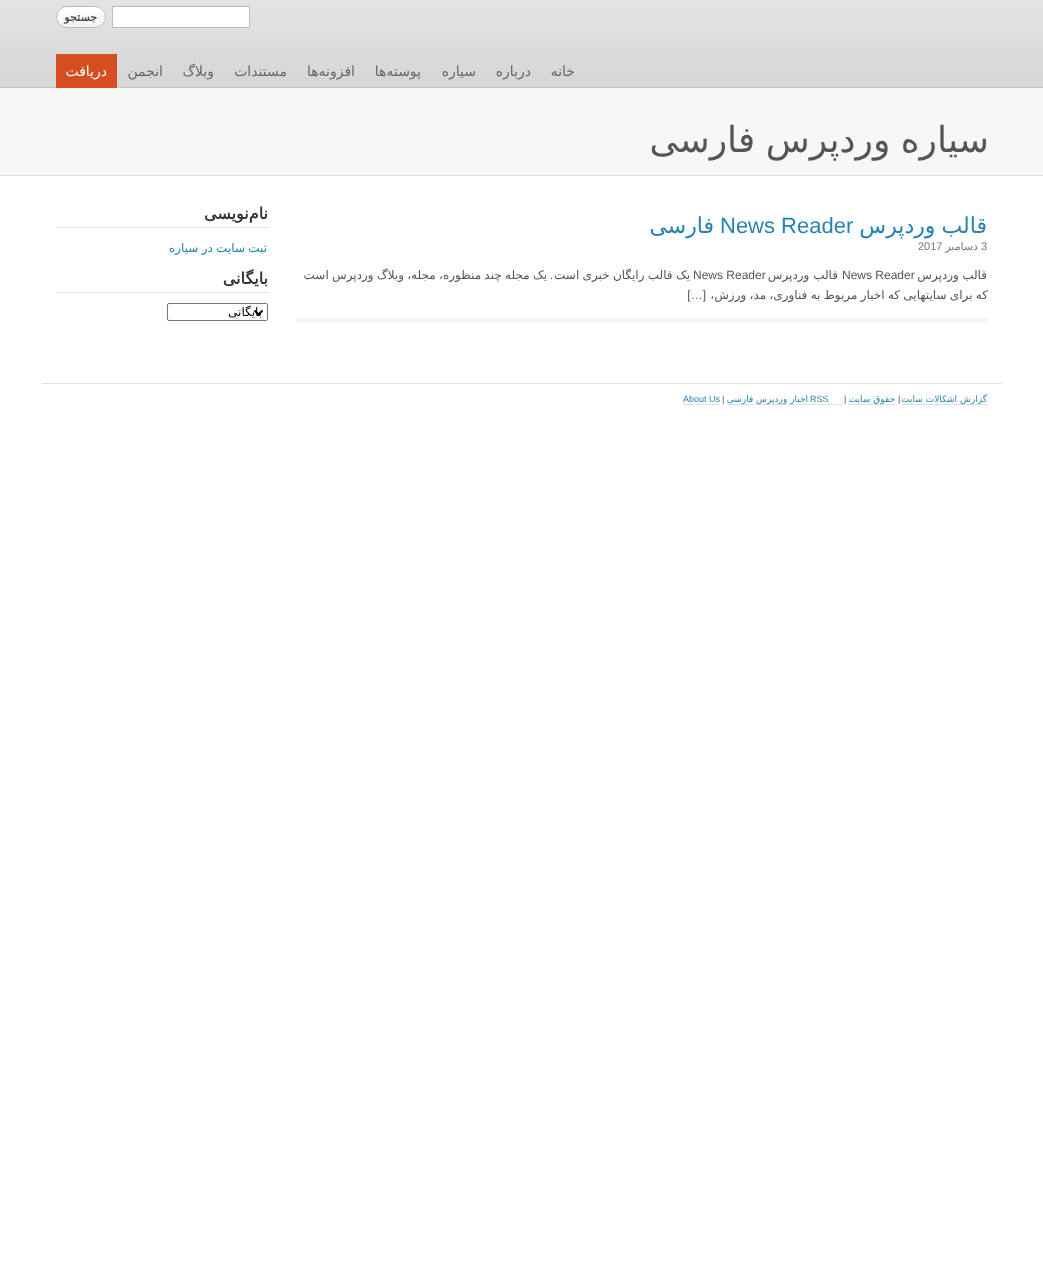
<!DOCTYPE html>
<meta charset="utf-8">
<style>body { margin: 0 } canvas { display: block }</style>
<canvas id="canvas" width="1043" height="1277"></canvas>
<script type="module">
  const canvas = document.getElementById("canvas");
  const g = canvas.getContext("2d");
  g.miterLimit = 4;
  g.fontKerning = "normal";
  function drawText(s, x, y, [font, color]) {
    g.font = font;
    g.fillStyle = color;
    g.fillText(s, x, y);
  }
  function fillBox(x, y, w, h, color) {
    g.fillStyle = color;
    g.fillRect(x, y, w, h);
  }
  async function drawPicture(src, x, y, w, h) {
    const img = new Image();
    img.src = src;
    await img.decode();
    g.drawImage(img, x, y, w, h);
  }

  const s1 = ["bold 11px DejaVu Sans", "#464646"];
  const s2 = ["14px DejaVu Sans", "#666666"];
  const s3 = ["14px DejaVu Sans", "#FFFFFF"];
  const s4 = ["36px DejaVu Sans", "#555555"];
  const s5 = ["22px DejaVu Sans", "#2583AD"];
  const s6 = ["22px Liberation Sans", "#2583AD"];
  const s7 = ["11px Liberation Sans", "#777777"];
  const s8 = ["11px DejaVu Sans", "#777777"];
  const s9 = ["12px DejaVu Sans", "#555555"];
  const s10 = ["12px Liberation Sans", "#555555"];
  const s11 = ["bold 16px DejaVu Sans", "#333333"];
  const s12 = ["12px DejaVu Sans", "#2583AD"];
  const s13 = ["12px DejaVu Sans", "#000000"];
  const s14 = ["9px DejaVu Sans", "#2583AD"];
  const s15 = ["9px Liberation Sans", "#555555"];
  const s16 = ["9px Liberation Sans", "#2583AD"];

  fillBox(0, 0, 1043, 1277, "#FFFFFF");
  await drawPicture("pic1.png", 0, 0, 1043, 88);
  g.beginPath();
  g.rect(112.5, 6.5, 137, 21);
  g.fill();
  g.strokeStyle = "#BBBBBB";
  g.stroke();
  await drawPicture("pic2.png", 56, 7, 50, 21);
  g.beginPath();
  g.roundRect(56.5, 6.5, 49, 21, 10.5);
  g.stroke();
  g.direction = "rtl";
  drawText("جستجو", 97, 21, s1);
  drawText("خانه", 575, 76, s2);
  drawText("درباره", 531, 76, s2);
  drawText("سیاره", 476, 76, s2);
  drawText("پوسته‌ها", 421, 76, s2);
  drawText("افزونه‌ها", 355, 76, s2);
  drawText("مستندات", 287, 76, s2);
  drawText("وبلاگ", 214, 76, s2);
  drawText("انجمن", 163, 76, s2);
  fillBox(56, 54, 61, 34, "#D54E21");
  drawText("دریافت", 107, 76, s3);
  fillBox(0, 88, 1043, 87, "#F7F7F7");
  fillBox(0, 175, 1043, 1, "#DFDFDF");
  g.wordSpacing = "-1px";
  drawText("سیاره وردپرس فارسی", 989, 152, s4);
  fillBox(296, 318, 692, 5, "#F5F5F5");
  drawText("قالب وردپرس", 987, 233, s5);
  g.wordSpacing = "0px";
  g.direction = "ltr";
  drawText("News Reader", 720, 233, s6);
  g.direction = "rtl";
  drawText("فارسی", 714, 233, s5);
  g.direction = "ltr";
  drawText("3", 981, 250, s7);
  g.direction = "rtl";
  drawText("دسامبر", 978, 250, s8);
  g.direction = "ltr";
  drawText("2017", 918, 250, s7);
  g.wordSpacing = "-0.5px";
  g.direction = "rtl";
  drawText("قالب وردپرس", 987, 279, s9);
  g.wordSpacing = "0px";
  g.direction = "ltr";
  drawText("News Reader", 842, 279, s10);
  g.direction = "rtl";
  drawText("قالب وردپرس", 838, 279, s9);
  g.direction = "ltr";
  drawText("News Reader", 693, 279, s10);
  g.wordSpacing = "-0.5px";
  g.direction = "rtl";
  drawText("یک قالب رایگان خبری است", 690, 279, s9);
  g.wordSpacing = "0px";
  drawText(".", 553, 279, s10);
  g.wordSpacing = "-0.5px";
  drawText("یک مجله چند منظوره، مجله، وبلاگ وردپرس است", 547, 279, s9);
  drawText("که برای سایتهایی که اخبار مربوط به فناوری، مد، ورزش،", 988, 299, s9);
  g.wordSpacing = "0px";
  drawText("[…]", 706, 299, s10);
  fillBox(56, 227, 212, 1, "#DEDEDE");
  drawText("نام‌نویسی", 268, 219, s11);
  g.wordSpacing = "-0.5px";
  drawText("ثبت سایت در سیاره", 267, 252, s12);
  fillBox(56, 292, 212, 1, "#DEDEDE");
  g.wordSpacing = "0px";
  drawText("بایگانی", 268, 284, s11);
  g.beginPath();
  g.roundRect(167.5, 303.5, 100, 17, 1.5);
  g.strokeStyle = "#767676";
  g.stroke();
  g.beginPath();
  g.moveTo(254.5, 310.5);
  g.lineTo(258.5, 314.5);
  g.lineTo(262.5, 310.5);
  g.strokeStyle = "#000000";
  g.lineWidth = 2;
  g.stroke();
  drawText("بایگانی", 262, 316, s13);
  fillBox(42, 383, 960, 1, "#DEDEDE");
  fillBox(902, 404, 86, 1, "#DFDFDF");
  drawText("گزارش اشکالات سایت", 987, 402, s14);
  g.direction = "ltr";
  drawText("|", 898, 402, s15);
  fillBox(849, 404, 46, 1, "#DFDFDF");
  g.direction = "rtl";
  drawText("حقوق سایت", 895, 402, s14);
  g.direction = "ltr";
  drawText("|", 844, 402, s15);
  drawText("RSS", 810, 402, s16);
  fillBox(727, 404, 115, 1, "#DFDFDF");
  g.direction = "rtl";
  drawText("اخبار وردپرس فارسی", 808, 402, s14);
  g.direction = "ltr";
  drawText("|", 722, 402, s15);
  drawText("About Us", 683, 402, s16);
  fillBox(683, 404, 37, 1, "#DFDFDF");
</script>
